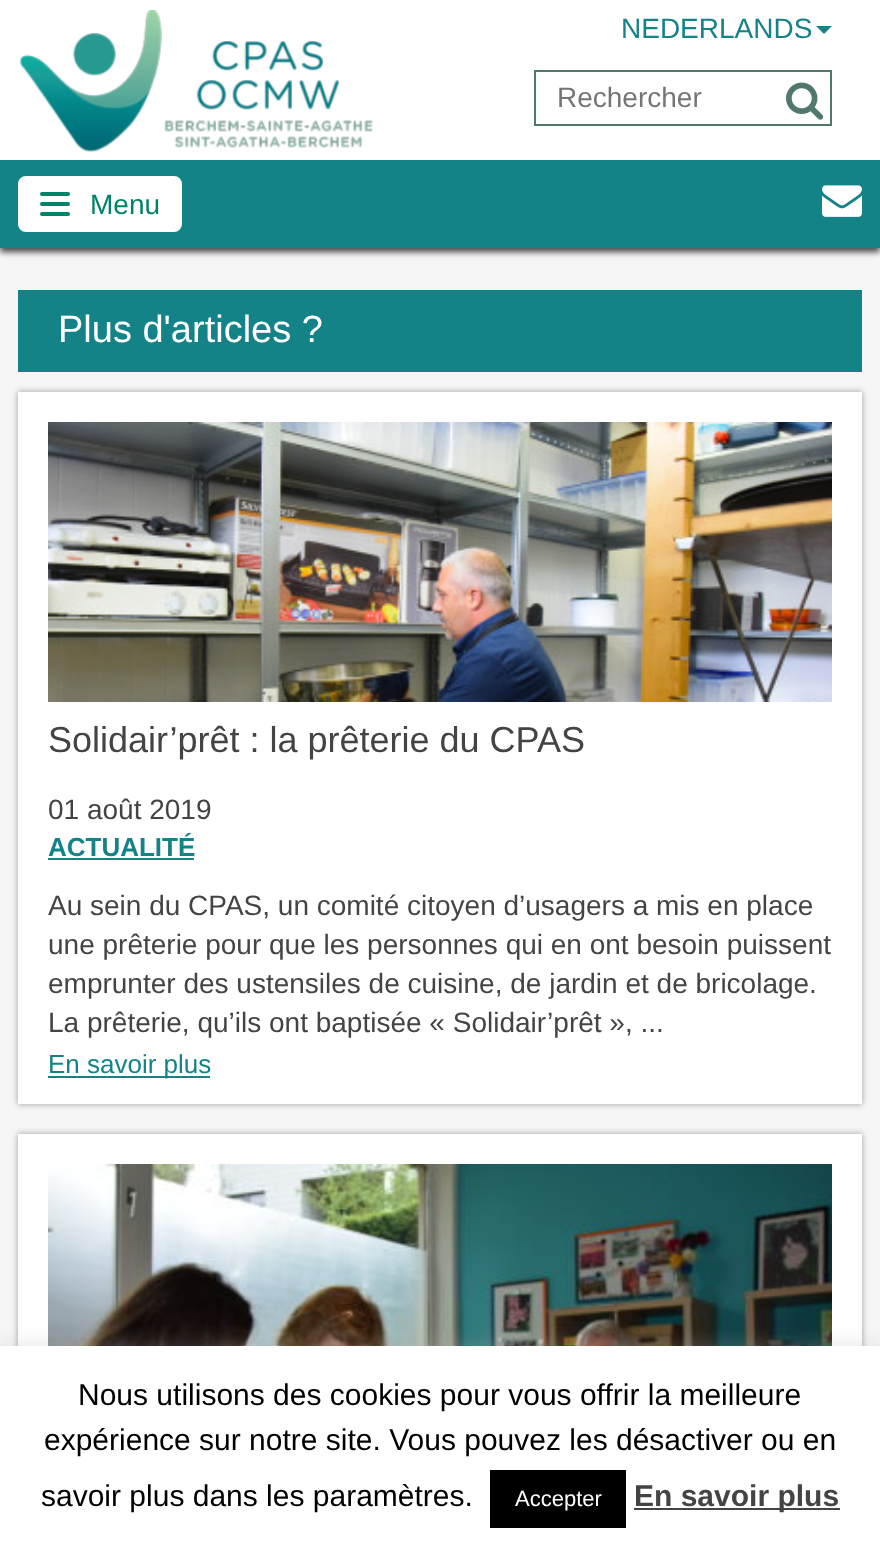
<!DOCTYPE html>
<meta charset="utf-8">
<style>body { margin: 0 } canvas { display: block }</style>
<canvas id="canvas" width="880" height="1551"></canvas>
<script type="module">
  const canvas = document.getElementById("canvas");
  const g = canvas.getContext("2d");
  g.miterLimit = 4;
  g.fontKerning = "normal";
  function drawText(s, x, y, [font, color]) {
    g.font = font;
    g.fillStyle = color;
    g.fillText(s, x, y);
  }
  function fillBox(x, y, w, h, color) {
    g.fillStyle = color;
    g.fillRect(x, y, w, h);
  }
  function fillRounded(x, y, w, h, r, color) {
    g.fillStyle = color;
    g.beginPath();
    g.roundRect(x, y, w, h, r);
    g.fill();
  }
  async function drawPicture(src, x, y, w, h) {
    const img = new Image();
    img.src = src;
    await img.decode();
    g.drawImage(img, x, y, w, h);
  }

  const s1 = ["28px Liberation Sans", "#138387"];
  const s2 = ["28px Liberation Sans", "#757575"];
  const s3 = ["28px Liberation Sans", "#008368"];
  const s4 = ["38px Liberation Sans", "#FFFFFF"];
  const s5 = ["36px Liberation Sans", "#444444"];
  const s6 = ["28px Liberation Sans", "#444444"];
  const s7 = ["bold 26px Liberation Sans", "#138387"];
  const s8 = ["26px Liberation Sans", "#138387"];
  const s9 = ["30px Liberation Sans", "#000000"];
  const s10 = ["22px Liberation Sans", "#FFFFFF"];
  const s11 = ["bold 30px Liberation Sans", "#444444"];

  fillBox(0, 0, 880, 1551, "#F6F6F6");
  g.fillStyle = "#444444";
  g.filter = "blur(3px)";
  g.beginPath();
  g.rect(0, 4, 880, 248);
  g.fill();
  g.filter = "none";
  fillBox(0, 0, 880, 160, "#FFFFFF");
  await drawPicture("pic1.png", 19, 10, 354, 142);
  drawText("NEDERLANDS", 621, 38, s1);
  g.beginPath();
  g.moveTo(816, 26);
  g.lineTo(832, 26);
  g.lineTo(824, 34);
  g.closePath();
  g.fill();
  g.strokeStyle = "#50786F";
  g.lineWidth = 2;
  g.strokeRect(535, 71, 296, 54);
  drawText("Rechercher", 557, 107, s2);
  await drawPicture("pic2.png", 786, 82, 38, 38);
  fillBox(0, 160, 880, 88, "#138387");
  g.fillStyle = "#FFFFFF";
  g.beginPath();
  g.roundRect(19, 177, 162, 54, 7);
  g.fill();
  g.strokeStyle = "#FFFFFF";
  g.stroke();
  fillRounded(40, 192, 30, 4, 2, "#008368");
  fillRounded(40, 202, 30, 4, 2, "#008368");
  fillRounded(40, 212, 30, 4, 2, "#008368");
  drawText("Menu", 90, 214, s3);
  await drawPicture("pic3.png", 822, 185, 40, 32);
  fillBox(18, 290, 844, 82, "#138387");
  drawText("Plus d'articles ?", 58, 342, s4);
  g.fillStyle = "#999999";
  g.filter = "blur(3px)";
  g.beginPath();
  g.rect(18, 392, 844, 712);
  g.fill();
  g.filter = "none";
  fillBox(18, 392, 844, 712, "#FFFFFF");
  await drawPicture("pic4.png", 48, 422, 784, 280);
  drawText("Solidair’prêt : la prêterie du CPAS", 48, 752, s5);
  drawText("01 août 2019", 48, 819, s6);
  drawText("ACTUALITÉ", 48, 856, s7);
  fillBox(48, 858, 146, 2, "#138387");
  drawText("Au sein du CPAS, un comité citoyen d’usagers a mis en place", 48, 915, s6);
  drawText("une prêterie pour que les personnes qui en ont besoin puissent", 48, 954, s6);
  drawText("emprunter des ustensiles de cuisine, de jardin et de bricolage.", 48, 993, s6);
  drawText("La prêterie, qu’ils ont baptisée « Solidair’prêt », ...", 48, 1032, s6);
  fillBox(48, 1076, 162, 2, "#138387");
  drawText("En savoir plus", 48, 1073, s8);
  g.fillStyle = "#999999";
  g.filter = "blur(3px)";
  g.beginPath();
  g.rect(18, 1134, 844, 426);
  g.fill();
  g.filter = "none";
  fillBox(18, 1134, 844, 212, "#FFFFFF");
  await drawPicture("pic5.png", 48, 1164, 784, 182);
  g.fillStyle = "rgba(172, 171, 171, 0.3)";
  g.filter = "blur(10px)";
  g.beginPath();
  g.rect(0, 1344, 880, 206);
  g.fill();
  g.filter = "none";
  fillBox(0, 1346, 880, 205, "#FFFFFF");
  drawText("Nous utilisons des cookies pour vous offrir la meilleure", 78, 1405, s9);
  drawText("expérience sur notre site. Vous pouvez les désactiver ou en", 44, 1450, s9);
  drawText("savoir plus dans les paramètres.", 41, 1506, s9);
  fillBox(490, 1470, 136, 58, "#000000");
  drawText("Accepter", 515, 1506, s10);
  fillBox(634, 1508, 206, 2, "#444444");
  drawText("En savoir plus", 634, 1506, s11);
</script>
